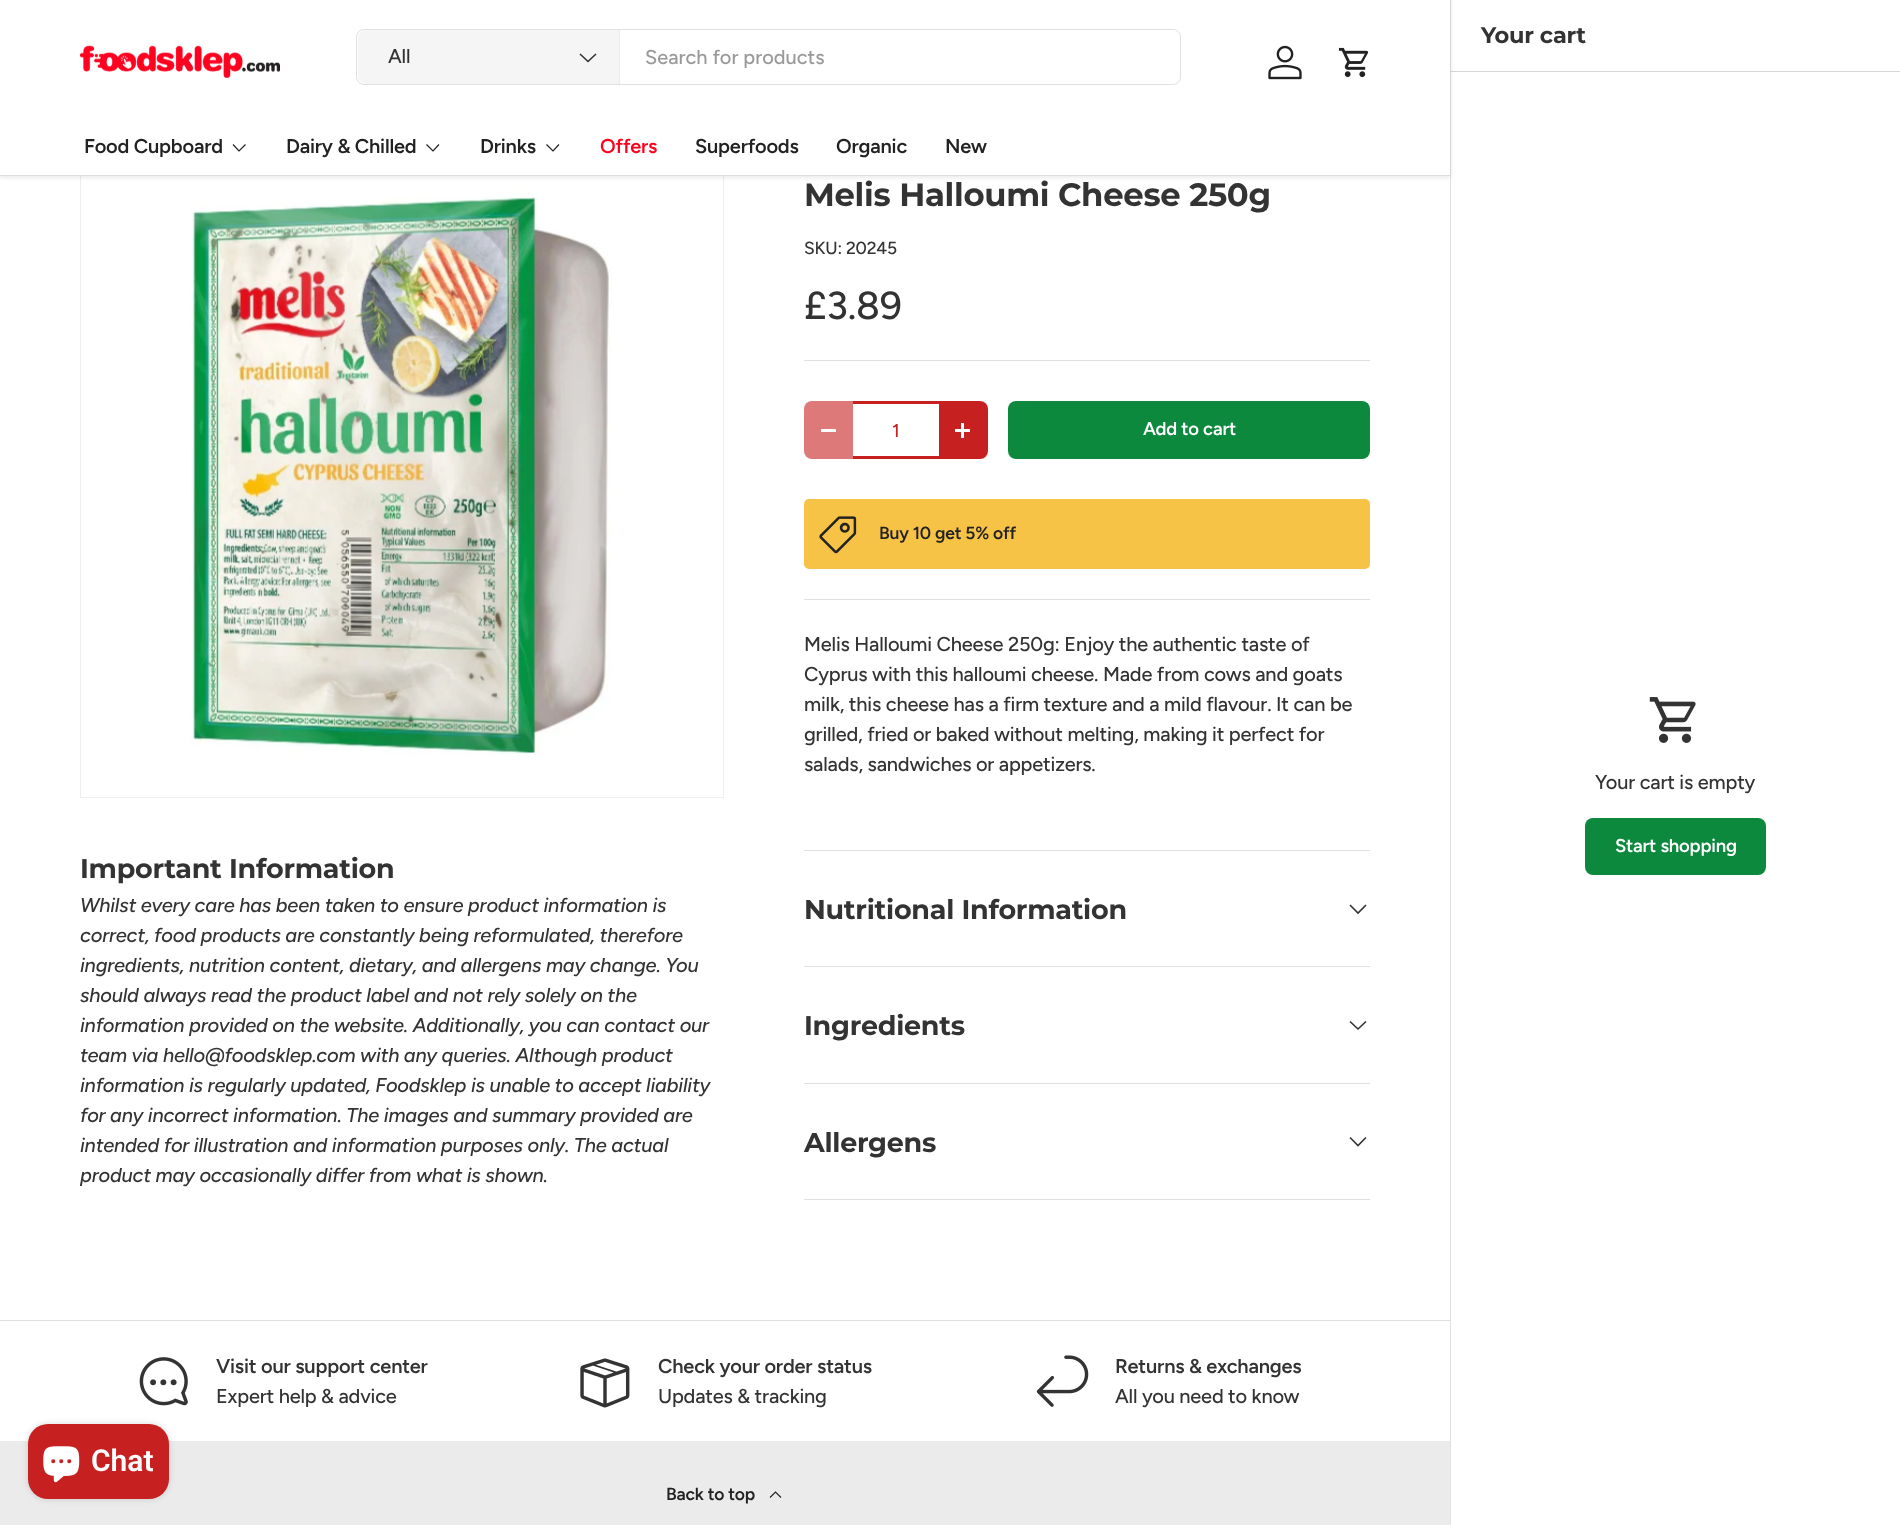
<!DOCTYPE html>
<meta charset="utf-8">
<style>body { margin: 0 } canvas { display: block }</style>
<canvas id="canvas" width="1900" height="1525"></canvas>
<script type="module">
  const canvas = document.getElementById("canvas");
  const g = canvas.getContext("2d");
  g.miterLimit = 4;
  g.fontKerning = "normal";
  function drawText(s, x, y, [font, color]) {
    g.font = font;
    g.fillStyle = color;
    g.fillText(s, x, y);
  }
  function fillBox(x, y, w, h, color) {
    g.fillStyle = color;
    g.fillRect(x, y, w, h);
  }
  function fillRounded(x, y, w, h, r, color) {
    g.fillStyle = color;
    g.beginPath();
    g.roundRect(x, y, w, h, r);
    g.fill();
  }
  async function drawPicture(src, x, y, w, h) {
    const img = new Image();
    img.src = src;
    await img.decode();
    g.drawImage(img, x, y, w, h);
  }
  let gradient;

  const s1 = ["500 20px Figtree", "#333333"];
  const s2 = ["500 20px Figtree", "#999999"];
  const s3 = ["600 20px Figtree", "#222222"];
  const s4 = ["600 20px Figtree", "#FF001F"];
  const s5 = ["bold 22.5px Montserrat", "#333333"];
  const s6 = ["600 18.5px Figtree", "#FFFFFF"];
  const s7 = ["bold 32.3px Montserrat", "#333333"];
  const s8 = ["500 17.5px Figtree", "#333333"];
  const s9 = ["500 39px Figtree", "#333333"];
  const s10 = ["500 18.5px Figtree", "#C62020"];
  const s11 = ["600 17.5px Figtree", "#222222"];
  const s12 = ["bold 27px Montserrat", "#333333"];
  const s13 = ["italic 500 20px Figtree", "#333333"];
  const s14 = ["600 20px Figtree", "#333333"];
  const s15 = ["600 30px Roboto", "#FFFFFF"];

  fillBox(0, 0, 1900, 1525, "#FFFFFF");
  fillBox(1450, 0, 1, 1525, "#E0E0E0");
  fillBox(1451, 71, 449, 1, "#D6D6D6");
  g.strokeStyle = "#EEEEEE";
  g.strokeRect(80.5, 154.5, 643, 643);
  await drawPicture("pic5.png", 81, 176, 642, 621);
  g.fillStyle = "rgba(0, 0, 0, 0.08)";
  g.filter = "blur(2px)";
  g.beginPath();
  g.rect(-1, -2, 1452, 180);
  g.fill();
  g.filter = "none";
  fillBox(0, 0, 1450, 175, "#FFFFFF");
  await drawPicture("pic1.png", 80, 45, 200, 33);
  g.beginPath();
  g.roundRect(356.5, 29.5, 824, 55, 7.5);
  g.strokeStyle = "#E0E0E0";
  g.stroke();
  fillRounded(358, 30, 822, 54, 8, "#FFFFFF");
  g.fillStyle = "#F5F5F5";
  g.beginPath();
  g.roundRect(358, 30, 262, 54, [8, 0, 0, 8]);
  g.fill();
  fillBox(619, 30, 1, 54, "#EBEBEB");
  g.letterSpacing = "-0.2px";
  drawText("All", 388, 63, s1);
  g.beginPath();
  g.moveTo(596, 54);
  g.lineTo(588, 61.5);
  g.lineTo(580, 54);
  g.strokeStyle = "#333333";
  g.lineWidth = 1.6;
  g.stroke();
  g.letterSpacing = "0px";
  drawText("Search for products", 645, 64, s2);
  await drawPicture("pic2.png", 1268, 45, 34, 35);
  await drawPicture("pic3.png", 1338, 47, 31, 31);
  g.letterSpacing = "-0.2px";
  drawText("Food Cupboard", 84, 153, s3);
  g.beginPath();
  g.moveTo(245.5, 144.5);
  g.lineTo(239, 151);
  g.lineTo(233, 144.5);
  g.strokeStyle = "#222222";
  g.lineWidth = 1.2;
  g.stroke();
  drawText("Dairy & Chilled", 286, 153, s3);
  g.beginPath();
  g.moveTo(439, 144.5);
  g.lineTo(433, 151);
  g.lineTo(426.5, 144.5);
  g.stroke();
  drawText("Drinks", 480, 153, s3);
  g.beginPath();
  g.moveTo(559, 144.5);
  g.lineTo(553, 151);
  g.lineTo(546.5, 144.5);
  g.stroke();
  drawText("Offers", 600, 153, s4);
  drawText("Superfoods", 695, 153, s3);
  drawText("Organic", 836, 153, s3);
  drawText("New", 945, 153, s3);
  fillBox(0, 175, 1450, 1, "#DEDEDE");
  g.letterSpacing = "-0.25px";
  drawText("Your cart", 1481, 43, s5);
  await drawPicture("pic4.png", 1649, 697, 47, 46);
  g.letterSpacing = "-0.2px";
  drawText("Your cart is empty", 1595, 789, s1);
  gradient = g.createLinearGradient(1232, 781, 1757, 912);
  gradient.addColorStop(0.6, "#35A762");
  gradient.addColorStop(0.6, "#0D893E");
  gradient.addColorStop(1, "#0D893E");
  g.fillStyle = gradient;
  g.beginPath();
  g.roundRect(1585, 818, 181, 57, 8);
  g.fill();
  drawText("Start shopping", 1615, 852, s6);
  g.letterSpacing = "-0.3px";
  drawText("Melis Halloumi Cheese 250g", 804, 206, s7);
  g.letterSpacing = "-0.2px";
  drawText("SKU: 20245", 804, 254, s8);
  drawText("£3.89", 804, 319, s9);
  fillBox(804, 360, 566, 1, "#E0E0E0");
  g.fillStyle = "#DD7979";
  g.beginPath();
  g.roundRect(804, 401, 49, 58, [8, 0, 0, 8]);
  g.fill();
  fillBox(821, 429, 15, 3, "#FFFFFF");
  fillBox(853, 456, 86, 3, "#C62020");
  fillBox(853, 401, 86, 3, "#C62020");
  g.letterSpacing = "0px";
  drawText("1", 892, 437, s10);
  g.beginPath();
  g.roundRect(939, 401, 49, 58, [0, 8, 8, 0]);
  g.fill();
  fillBox(955, 429, 15, 3, "#FFFFFF");
  fillBox(961, 423, 3, 15, "#FFFFFF");
  gradient = g.createLinearGradient(308, 301, 1345, 559);
  gradient.addColorStop(0.6, "#35A762");
  gradient.addColorStop(0.6, "#0D893E");
  gradient.addColorStop(1, "#0D893E");
  g.fillStyle = gradient;
  g.beginPath();
  g.roundRect(1008, 401, 362, 58, 8);
  g.fill();
  g.letterSpacing = "-0.2px";
  drawText("Add to cart", 1143, 435, s6);
  fillRounded(804, 499, 566, 70, 5, "#F7C346");
  await drawPicture("pic6.png", 819, 516, 38, 38);
  drawText("Buy 10 get 5% off", 879, 539, s11);
  fillBox(804, 599, 566, 1, "#E0E0E0");
  drawText("Melis Halloumi Cheese 250g: Enjoy the authentic taste of", 804, 651, s1);
  drawText("Cyprus with this halloumi cheese. Made from cows and goats", 804, 681, s1);
  drawText("milk, this cheese has a firm texture and a mild flavour. It can be", 804, 711, s1);
  drawText("grilled, fried or baked without melting, making it perfect for", 804, 741, s1);
  drawText("salads, sandwiches or appetizers.", 804, 771, s1);
  g.letterSpacing = "-0.25px";
  drawText("Important Information", 80, 878, s12);
  g.letterSpacing = "-0.2px";
  drawText("Whilst every care has been taken to ensure product information is", 80, 912, s13);
  drawText("correct, food products are constantly being reformulated, therefore", 80, 942, s13);
  drawText("ingredients, nutrition content, dietary, and allergens may change. You", 80, 972, s13);
  drawText("should always read the product label and not rely solely on the", 80, 1002, s13);
  drawText("information provided on the website. Additionally, you can contact our", 80, 1032, s13);
  drawText("team via hello@foodsklep.com with any queries. Although product", 80, 1062, s13);
  drawText("information is regularly updated, Foodsklep is unable to accept liability", 80, 1092, s13);
  drawText("for any incorrect information. The images and summary provided are", 80, 1122, s13);
  drawText("intended for illustration and information purposes only. The actual", 80, 1152, s13);
  drawText("product may occasionally differ from what is shown.", 80, 1182, s13);
  fillBox(804, 850, 566, 1, "#E0E0E0");
  fillBox(804, 966, 566, 1, "#E0E0E0");
  g.letterSpacing = "-0.25px";
  drawText("Nutritional Information", 804, 919, s12);
  g.beginPath();
  g.moveTo(1366, 905);
  g.lineTo(1358, 913);
  g.lineTo(1350, 905);
  g.strokeStyle = "#333333";
  g.lineWidth = 1.6;
  g.stroke();
  fillBox(804, 1083, 566, 1, "#E0E0E0");
  drawText("Ingredients", 804, 1035, s12);
  g.beginPath();
  g.moveTo(1366, 1021.5);
  g.lineTo(1358, 1029);
  g.lineTo(1350, 1021.5);
  g.stroke();
  fillBox(804, 1199, 566, 1, "#E0E0E0");
  drawText("Allergens", 804, 1152, s12);
  g.beginPath();
  g.moveTo(1366, 1137.5);
  g.lineTo(1358, 1145.5);
  g.lineTo(1350, 1137.5);
  g.stroke();
  fillBox(0, 1320, 1450, 1, "#E0E0E0");
  await drawPicture("pic7.png", 139, 1357, 49, 49);
  g.letterSpacing = "-0.2px";
  drawText("Visit our support center", 216, 1373, s14);
  drawText("Expert help & advice", 216, 1403, s1);
  await drawPicture("pic8.png", 580, 1358, 50, 50);
  drawText("Check your order status", 658, 1373, s14);
  drawText("Updates & tracking", 658, 1403, s1);
  await drawPicture("pic9.png", 1036, 1355, 53, 52);
  drawText("Returns & exchanges", 1115, 1373, s14);
  drawText("All you need to know", 1115, 1403, s1);
  fillBox(0, 1441, 1450, 84, "#EBEBEB");
  g.fillStyle = "rgba(0, 0, 0, 0.15)";
  g.filter = "blur(3px)";
  g.beginPath();
  g.roundRect(28, 1424, 141, 75, 20);
  g.fill();
  g.filter = "none";
  fillRounded(28, 1424, 141, 75, 20, "#C62020");
  await drawPicture("pic10.png", 43, 1446, 37, 37);
  g.letterSpacing = "0px";
  drawText("Chat", 91, 1471, s15);
  g.letterSpacing = "-0.2px";
  drawText("Back to top", 666, 1500, s11);
  g.beginPath();
  g.moveTo(770, 1497.5);
  g.lineTo(775.5, 1492);
  g.lineTo(781, 1497.5);
  g.strokeStyle = "#222222";
  g.lineWidth = 1.1;
  g.stroke();
</script>
